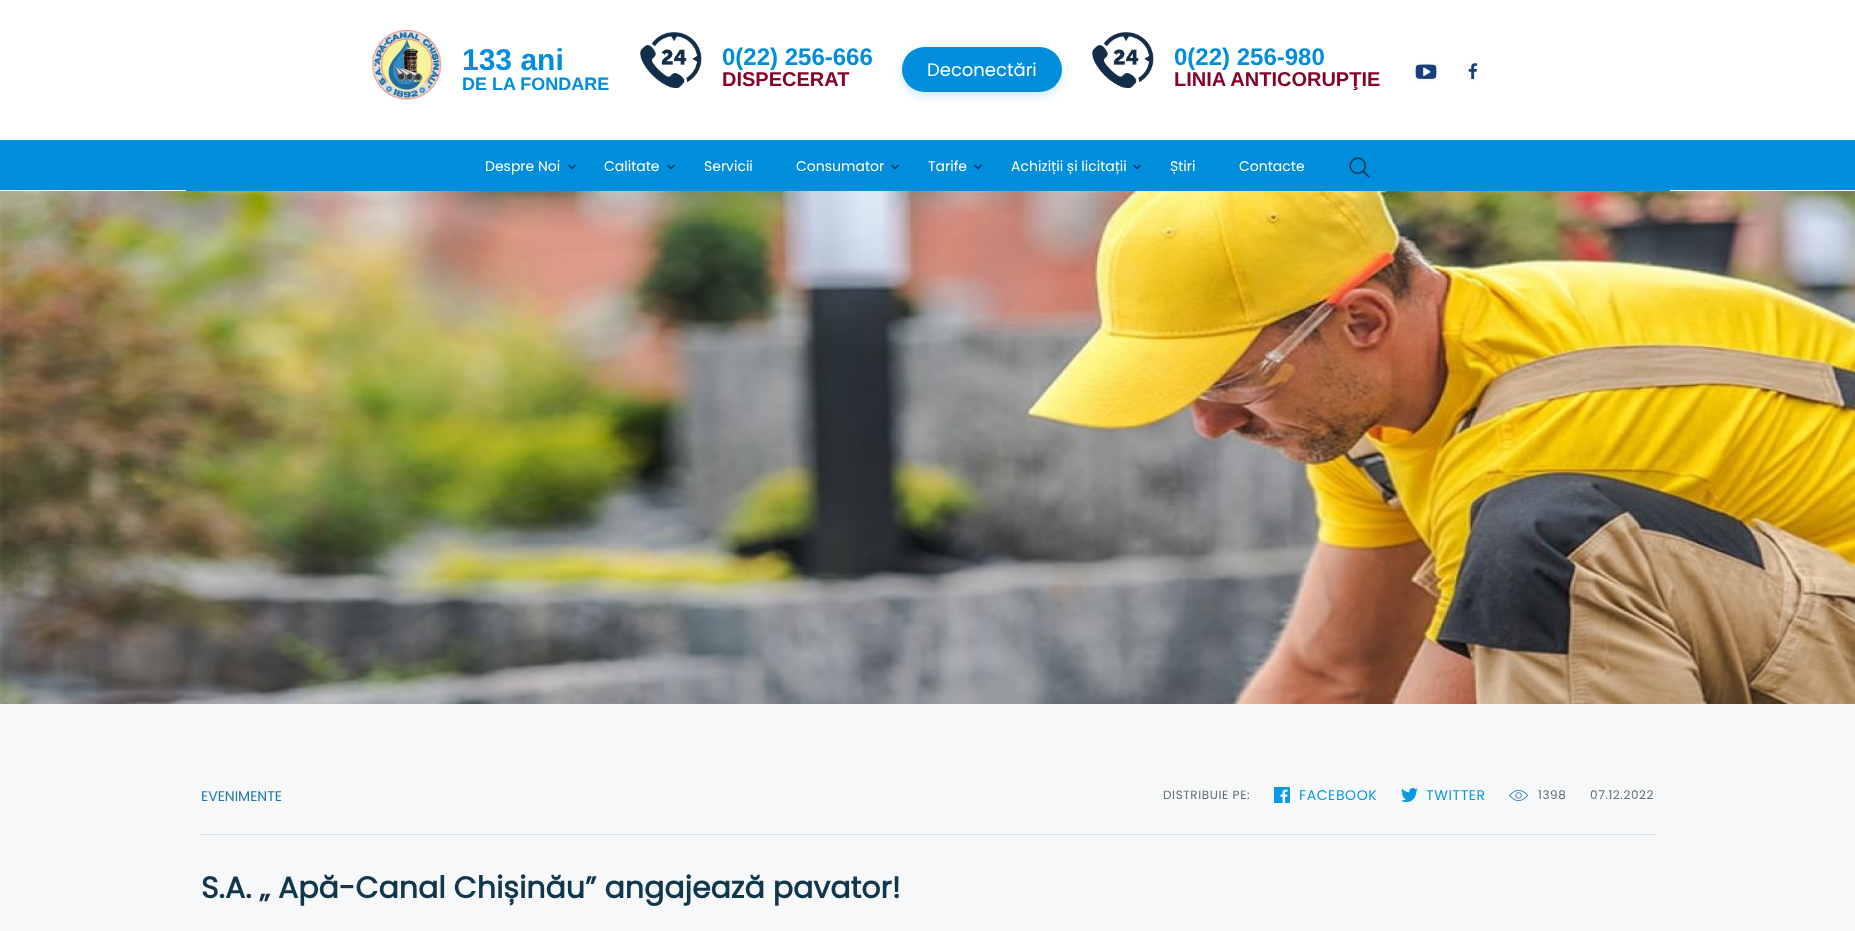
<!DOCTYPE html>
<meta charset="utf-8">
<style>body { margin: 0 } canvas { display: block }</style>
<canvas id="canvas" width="1855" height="931"></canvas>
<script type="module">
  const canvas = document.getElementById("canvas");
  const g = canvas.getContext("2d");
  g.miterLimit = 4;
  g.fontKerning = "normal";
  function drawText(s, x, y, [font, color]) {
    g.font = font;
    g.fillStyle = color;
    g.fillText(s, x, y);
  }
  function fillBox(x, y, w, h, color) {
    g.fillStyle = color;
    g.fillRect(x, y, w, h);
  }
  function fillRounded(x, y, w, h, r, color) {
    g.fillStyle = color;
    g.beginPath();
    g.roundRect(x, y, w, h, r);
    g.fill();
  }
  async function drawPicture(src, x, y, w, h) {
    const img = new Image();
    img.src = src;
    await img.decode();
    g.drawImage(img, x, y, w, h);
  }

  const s1 = ["bold 30px Liberation Sans", "#008DDB"];
  const s2 = ["bold 18px Liberation Sans", "#008DDB"];
  const s3 = ["bold 24px Liberation Sans", "#008DDB"];
  const s4 = ["bold 20px Liberation Sans", "#850327"];
  const s5 = ["18px Poppins", "#FFFFFF"];
  const s6 = ["14px Poppins", "#FFFFFF"];
  const s7 = ["14px Poppins", "#2279A8"];
  const s8 = ["12px Poppins", "#646C71"];
  const s9 = ["14px Poppins", "#0A99E2"];
  const s10 = ["bold 30px Poppins", "#11374D"];

  fillBox(0, 0, 1855, 931, "#F6F8F9");
  fillBox(0, 0, 1855, 140, "#FFFFFF");
  await drawPicture("pic1.png", 372, 30, 70, 70);
  drawText("133 ani", 462, 70, s1);
  drawText("DE LA FONDARE", 462, 90, s2);
  await drawPicture("pic2.png", 640, 32, 62, 56);
  drawText("0(22) 256-666", 722, 65, s3);
  drawText("DISPECERAT", 722, 86, s4);
  g.fillStyle = "rgba(0, 141, 219, 0.2)";
  g.filter = "blur(5px)";
  g.beginPath();
  g.roundRect(902, 51, 160, 45, 22.5);
  g.fill();
  g.filter = "none";
  fillRounded(902, 47, 160, 45, 22.5, "#008DDB");
  drawText("Deconectări", 927, 76, s5);
  await drawPicture("pic2.png", 1092, 32, 62, 56);
  drawText("0(22) 256-980", 1174, 65, s3);
  drawText("LINIA ANTICORUPŢIE", 1174, 86, s4);
  await drawPicture("pic3.png", 1410, 59, 30, 25);
  await drawPicture("pic4.png", 1462, 59, 16, 23);
  fillBox(0, 140, 1855, 50, "#008DDB");
  fillBox(186, 190, 1484, 1, "#008DDB");
  drawText("Despre Noi", 485, 171, s6);
  await drawPicture("pic5.png", 568, 164, 8, 6);
  drawText("Calitate", 604, 171, s6);
  await drawPicture("pic5.png", 667, 164, 8, 6);
  drawText("Servicii", 704, 171, s6);
  drawText("Consumator", 796, 171, s6);
  await drawPicture("pic5.png", 891, 164, 8, 6);
  drawText("Tarife", 928, 171, s6);
  await drawPicture("pic5.png", 974, 164, 8, 6);
  drawText("Achiziții și licitații", 1011, 171, s6);
  await drawPicture("pic5.png", 1133, 164, 8, 6);
  drawText("Știri", 1170, 171, s6);
  drawText("Contacte", 1239, 171, s6);
  await drawPicture("pic6.png", 1349, 157, 21, 21);
  await drawPicture("pic7.png", 0, 191, 1855, 513);
  fillBox(201, 834, 1454, 1, "#D8E0E5");
  drawText("EVENIMENTE", 201, 801, s7);
  g.letterSpacing = "0.6px";
  drawText("DISTRIBUIE PE:", 1163, 799, s8);
  await drawPicture("pic8.png", 1274, 787, 16, 16);
  drawText("FACEBOOK", 1299, 800, s9);
  await drawPicture("pic9.png", 1401, 788, 17, 14);
  drawText("TWITTER", 1426, 800, s9);
  await drawPicture("pic10.png", 1509, 790, 19, 11);
  drawText("1398", 1538, 799, s8);
  drawText("07.12.2022", 1590, 799, s8);
  g.letterSpacing = "0px";
  drawText("S.A. „ Apă-Canal Chișinău” angajează pavator!", 201, 898, s10);
</script>
